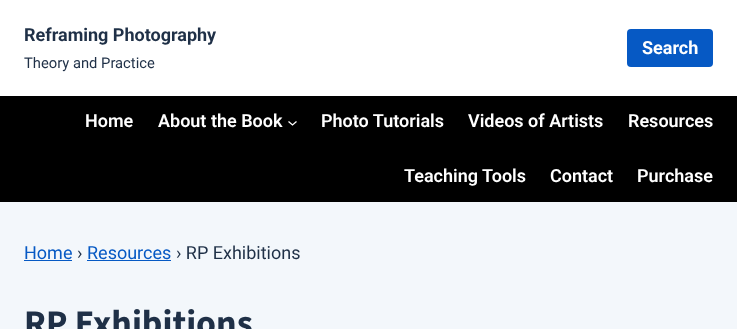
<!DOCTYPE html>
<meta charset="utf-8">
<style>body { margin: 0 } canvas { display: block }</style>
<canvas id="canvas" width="737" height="329"></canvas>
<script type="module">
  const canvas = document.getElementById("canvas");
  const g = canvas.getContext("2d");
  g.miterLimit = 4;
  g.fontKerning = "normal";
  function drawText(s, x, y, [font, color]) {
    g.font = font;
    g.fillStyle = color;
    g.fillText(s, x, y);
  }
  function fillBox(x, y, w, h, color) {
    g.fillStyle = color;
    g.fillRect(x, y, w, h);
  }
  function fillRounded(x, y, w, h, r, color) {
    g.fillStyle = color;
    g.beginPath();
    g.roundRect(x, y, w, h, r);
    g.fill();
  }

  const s1 = ["bold 18px Roboto", "#1F3047"];
  const s2 = ["14.75px Roboto", "#1F3047"];
  const s3 = ["bold 18px Roboto", "#FFFFFF"];
  const s4 = ["600 18px Roboto", "#FFFFFF"];
  const s5 = ["18px Roboto", "#0659C4"];
  const s6 = ["18px Roboto", "#1F3047"];
  const s7 = ["bold 36px 'Source Sans 3'", "#1F3047"];

  fillBox(0, 0, 737, 329, "#F3F7FB");
  fillBox(0, 0, 737, 96, "#FFFFFF");
  drawText("Reframing Photography", 24, 41, s1);
  drawText("Theory and Practice", 24, 68, s2);
  fillRounded(627, 29, 86, 38, 4, "#0659C4");
  drawText("Search", 642, 54, s3);
  fillBox(0, 96, 737, 106, "#000000");
  drawText("Home", 85, 127, s4);
  drawText("About the Book", 158, 127, s4);
  g.beginPath();
  g.moveTo(288.5, 121.5);
  g.lineTo(292.5, 125);
  g.lineTo(296.5, 121.5);
  g.strokeStyle = "#FFFFFF";
  g.lineWidth = 1.3;
  g.stroke();
  drawText("Photo Tutorials", 321, 127, s4);
  drawText("Videos of Artists", 468, 127, s4);
  drawText("Resources", 628, 127, s4);
  drawText("Teaching Tools", 404, 182, s4);
  drawText("Contact", 550, 182, s4);
  drawText("Purchase", 637, 182, s4);
  drawText("Home", 24, 259, s5);
  fillBox(24, 260, 48, 1, "#0659C4");
  drawText("›", 77, 259, s6);
  drawText("Resources", 87, 259, s5);
  fillBox(87, 260, 84, 1, "#0659C4");
  drawText("› RP Exhibitions", 176, 259, s6);
  drawText("RP Exhibitions", 24, 335, s7);
</script>
